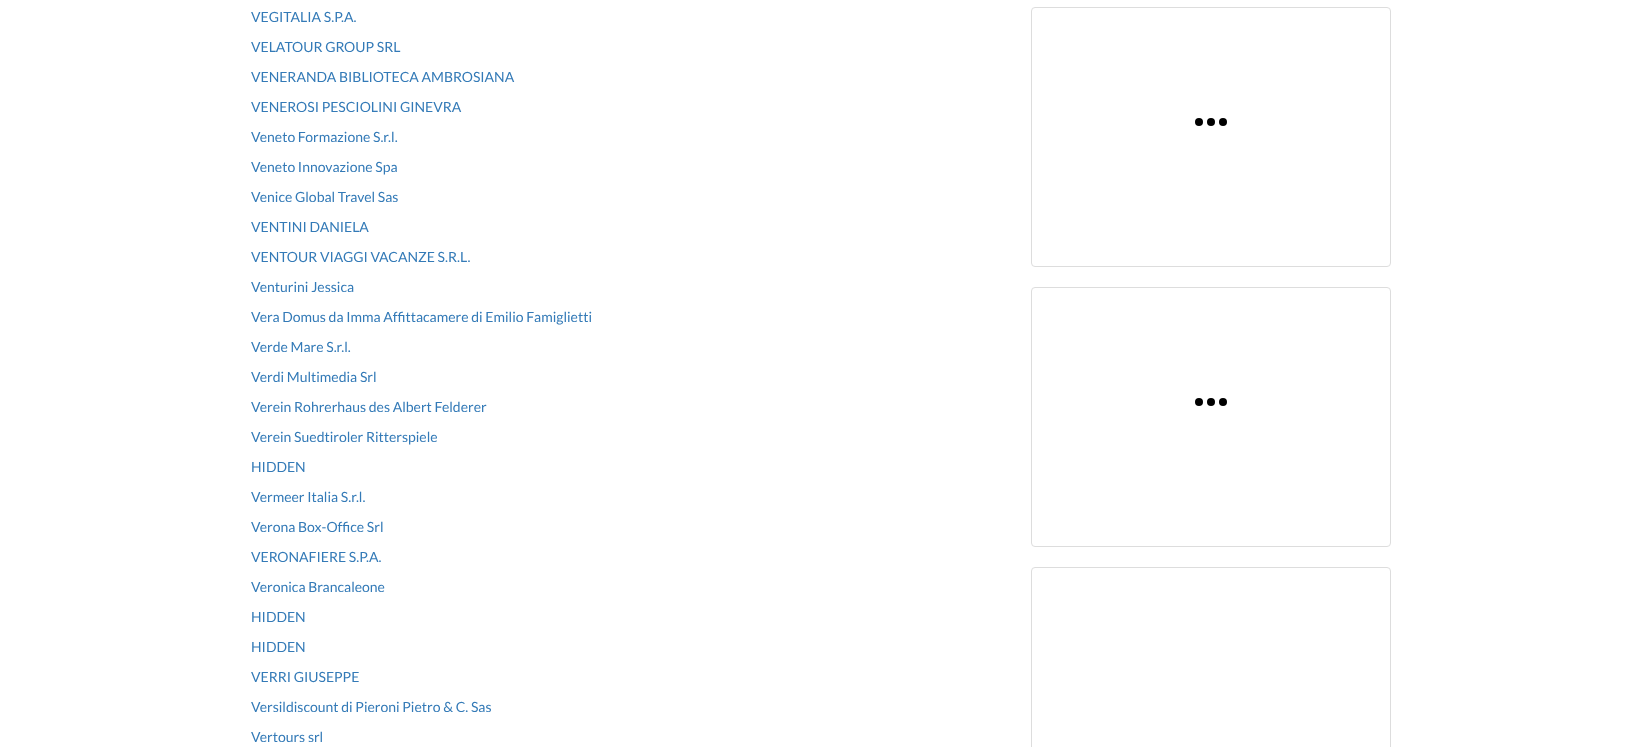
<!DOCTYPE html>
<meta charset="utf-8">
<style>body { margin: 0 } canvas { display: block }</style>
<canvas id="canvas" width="1642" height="747"></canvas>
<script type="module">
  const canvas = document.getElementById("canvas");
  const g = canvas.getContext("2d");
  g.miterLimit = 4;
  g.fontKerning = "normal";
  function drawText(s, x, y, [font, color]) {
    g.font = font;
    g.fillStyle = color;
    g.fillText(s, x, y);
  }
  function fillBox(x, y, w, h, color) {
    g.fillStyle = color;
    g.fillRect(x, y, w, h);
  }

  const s1 = ["14px Lato", "#337AB7"];

  fillBox(0, 0, 1642, 747, "#FFFFFF");
  drawText("VEGITALIA S.P.A.", 251, 22, s1);
  drawText("VELATOUR GROUP SRL", 251, 52, s1);
  drawText("VENERANDA BIBLIOTECA AMBROSIANA", 251, 82, s1);
  drawText("VENEROSI PESCIOLINI GINEVRA", 251, 112, s1);
  drawText("Veneto Formazione S.r.l.", 251, 142, s1);
  drawText("Veneto Innovazione Spa", 251, 172, s1);
  drawText("Venice Global Travel Sas", 251, 202, s1);
  drawText("VENTINI DANIELA", 251, 232, s1);
  drawText("VENTOUR VIAGGI VACANZE S.R.L.", 251, 262, s1);
  drawText("Venturini Jessica", 251, 292, s1);
  drawText("Vera Domus da Imma Affittacamere di Emilio Famiglietti", 251, 322, s1);
  drawText("Verde Mare S.r.l.", 251, 352, s1);
  drawText("Verdi Multimedia Srl", 251, 382, s1);
  drawText("Verein Rohrerhaus des Albert Felderer", 251, 412, s1);
  drawText("Verein Suedtiroler Ritterspiele", 251, 442, s1);
  drawText("HIDDEN", 251, 472, s1);
  drawText("Vermeer Italia S.r.l.", 251, 502, s1);
  drawText("Verona Box-Office Srl", 251, 532, s1);
  drawText("VERONAFIERE S.P.A.", 251, 562, s1);
  drawText("Veronica Brancaleone", 251, 592, s1);
  drawText("HIDDEN", 251, 622, s1);
  drawText("HIDDEN", 251, 652, s1);
  drawText("VERRI GIUSEPPE", 251, 682, s1);
  drawText("Versildiscount di Pieroni Pietro & C. Sas", 251, 712, s1);
  drawText("Vertours srl", 251, 742, s1);
  g.beginPath();
  g.roundRect(1031.5, 7.5, 359, 259, 3.5);
  g.strokeStyle = "#DDDDDD";
  g.stroke();
  g.fillStyle = "#000000";
  g.beginPath();
  g.arc(1211, 122, 4, 0, Math.PI * 2);
  g.fill();
  g.beginPath();
  g.arc(1199, 122, 4, 0, Math.PI * 2);
  g.fill();
  g.beginPath();
  g.arc(1223, 122, 4, 0, Math.PI * 2);
  g.fill();
  g.beginPath();
  g.roundRect(1031.5, 287.5, 359, 259, 3.5);
  g.stroke();
  g.beginPath();
  g.arc(1211, 402, 4, 0, Math.PI * 2);
  g.fill();
  g.beginPath();
  g.arc(1199, 402, 4, 0, Math.PI * 2);
  g.fill();
  g.beginPath();
  g.arc(1223, 402, 4, 0, Math.PI * 2);
  g.fill();
  g.beginPath();
  g.roundRect(1031.5, 567.5, 359, 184, 3.5);
  g.stroke();
</script>
